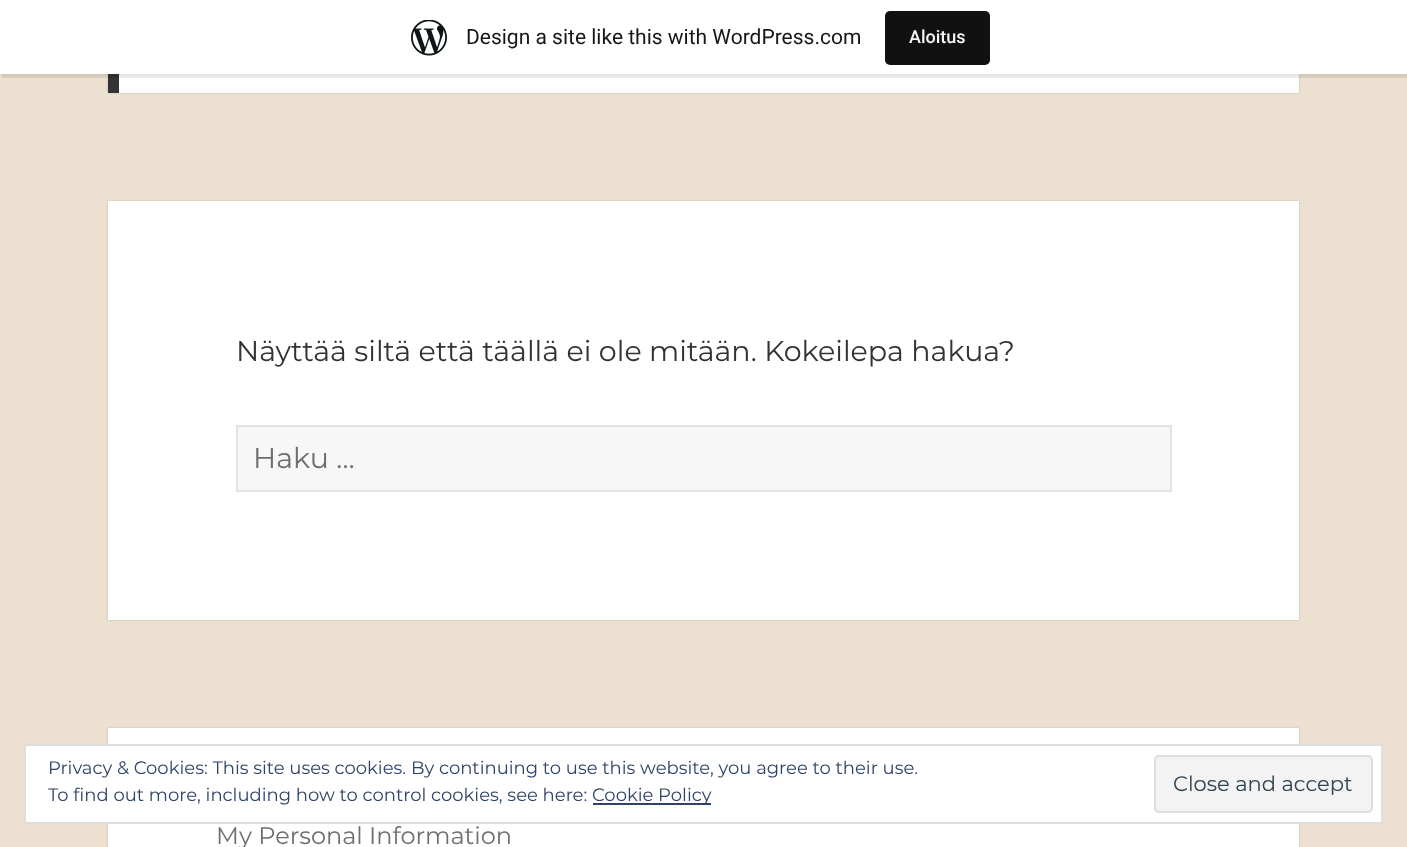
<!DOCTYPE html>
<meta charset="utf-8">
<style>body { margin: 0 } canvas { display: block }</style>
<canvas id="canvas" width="1407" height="847"></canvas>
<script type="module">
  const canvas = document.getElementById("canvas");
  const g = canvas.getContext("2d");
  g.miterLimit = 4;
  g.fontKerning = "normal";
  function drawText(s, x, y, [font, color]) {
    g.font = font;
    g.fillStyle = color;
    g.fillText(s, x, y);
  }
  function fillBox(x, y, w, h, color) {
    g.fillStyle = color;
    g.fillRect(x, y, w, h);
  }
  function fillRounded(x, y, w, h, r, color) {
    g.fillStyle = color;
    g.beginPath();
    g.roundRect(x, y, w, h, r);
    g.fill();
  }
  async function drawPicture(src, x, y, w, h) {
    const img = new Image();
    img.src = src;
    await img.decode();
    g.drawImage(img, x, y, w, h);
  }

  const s1 = ["21px Roboto", "#171717"];
  const s2 = ["500 18px Roboto", "#F6F7F7"];
  const s3 = ["28.5px Montserrat", "#333333"];
  const s4 = ["28.5px Montserrat", "#6E6E6E"];
  const s5 = ["24px Montserrat", "#6E6E6E"];
  const s6 = ["18px Montserrat", "#2E4467"];
  const s7 = ["21px Montserrat", "#2E4453"];

  fillBox(0, 0, 1407, 847, "#ECE0D1");
  g.fillStyle = "rgba(0, 0, 0, 0.15)";
  g.filter = "blur(1px)";
  g.beginPath();
  g.rect(108, -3, 1191, 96);
  g.fill();
  g.filter = "none";
  fillBox(119, 74, 1180, 19, "#FFFFFF");
  fillBox(108, 74, 11, 19, "#333333");
  g.fillStyle = "rgba(0, 0, 0, 0.05)";
  g.filter = "blur(1.5px)";
  g.beginPath();
  g.rect(0, 2, 1407, 73);
  g.fill();
  g.filter = "none";
  g.fillStyle = "rgba(0, 0, 0, 0.08)";
  g.beginPath();
  g.moveTo(2, 74);
  g.lineTo(2, 78);
  g.lineTo(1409, 78);
  g.lineTo(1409, 5);
  g.lineTo(1407, 5);
  g.lineTo(1407, 74);
  g.closePath();
  g.fill();
  fillBox(0, 0, 1407, 74, "#FFFFFF");
  await drawPicture("pic1.png", 411, 20, 36, 36);
  drawText("Design a site like this with WordPress.com", 466, 44, s1);
  fillRounded(885, 11, 105, 54, 5, "#111111");
  drawText("Aloitus", 909, 43, s2);
  g.fillStyle = "rgba(0, 0, 0, 0.15)";
  g.filter = "blur(1px)";
  g.beginPath();
  g.rect(108, 201, 1191, 419);
  g.fill();
  g.filter = "none";
  fillBox(108, 201, 1191, 419, "#FFFFFF");
  drawText("Näyttää siltä että täällä ei ole mitään. Kokeilepa hakua?", 236, 361, s3);
  g.fillStyle = "#F7F7F7";
  g.beginPath();
  g.rect(237, 426, 934, 65);
  g.fill();
  g.strokeStyle = "#E3E3E3";
  g.lineWidth = 2;
  g.stroke();
  drawText("Haku …", 253, 468, s4);
  g.fillStyle = "rgba(0, 0, 0, 0.15)";
  g.filter = "blur(1px)";
  g.beginPath();
  g.rect(108, 728, 1191, 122);
  g.fill();
  g.filter = "none";
  fillBox(108, 728, 1191, 119, "#FFFFFF");
  drawText("My Personal Information", 216, 844, s5);
  g.fillStyle = "#FFFFFF";
  g.beginPath();
  g.rect(25, 745, 1357, 78);
  g.fill();
  g.strokeStyle = "#DEDEDE";
  g.stroke();
  drawText("Privacy & Cookies: This site uses cookies. By continuing to use this website, you agree to their use.", 48, 774, s6);
  drawText("To find out more, including how to control cookies, see here:", 48, 801, s6);
  fillBox(593, 803, 118, 2, "#2E4467");
  drawText("Cookie Policy", 592, 801, s6);
  g.fillStyle = "#F3F3F3";
  g.beginPath();
  g.roundRect(1155, 756, 217, 56, 4);
  g.fill();
  g.stroke();
  drawText("Close and accept", 1173, 791, s7);
</script>
